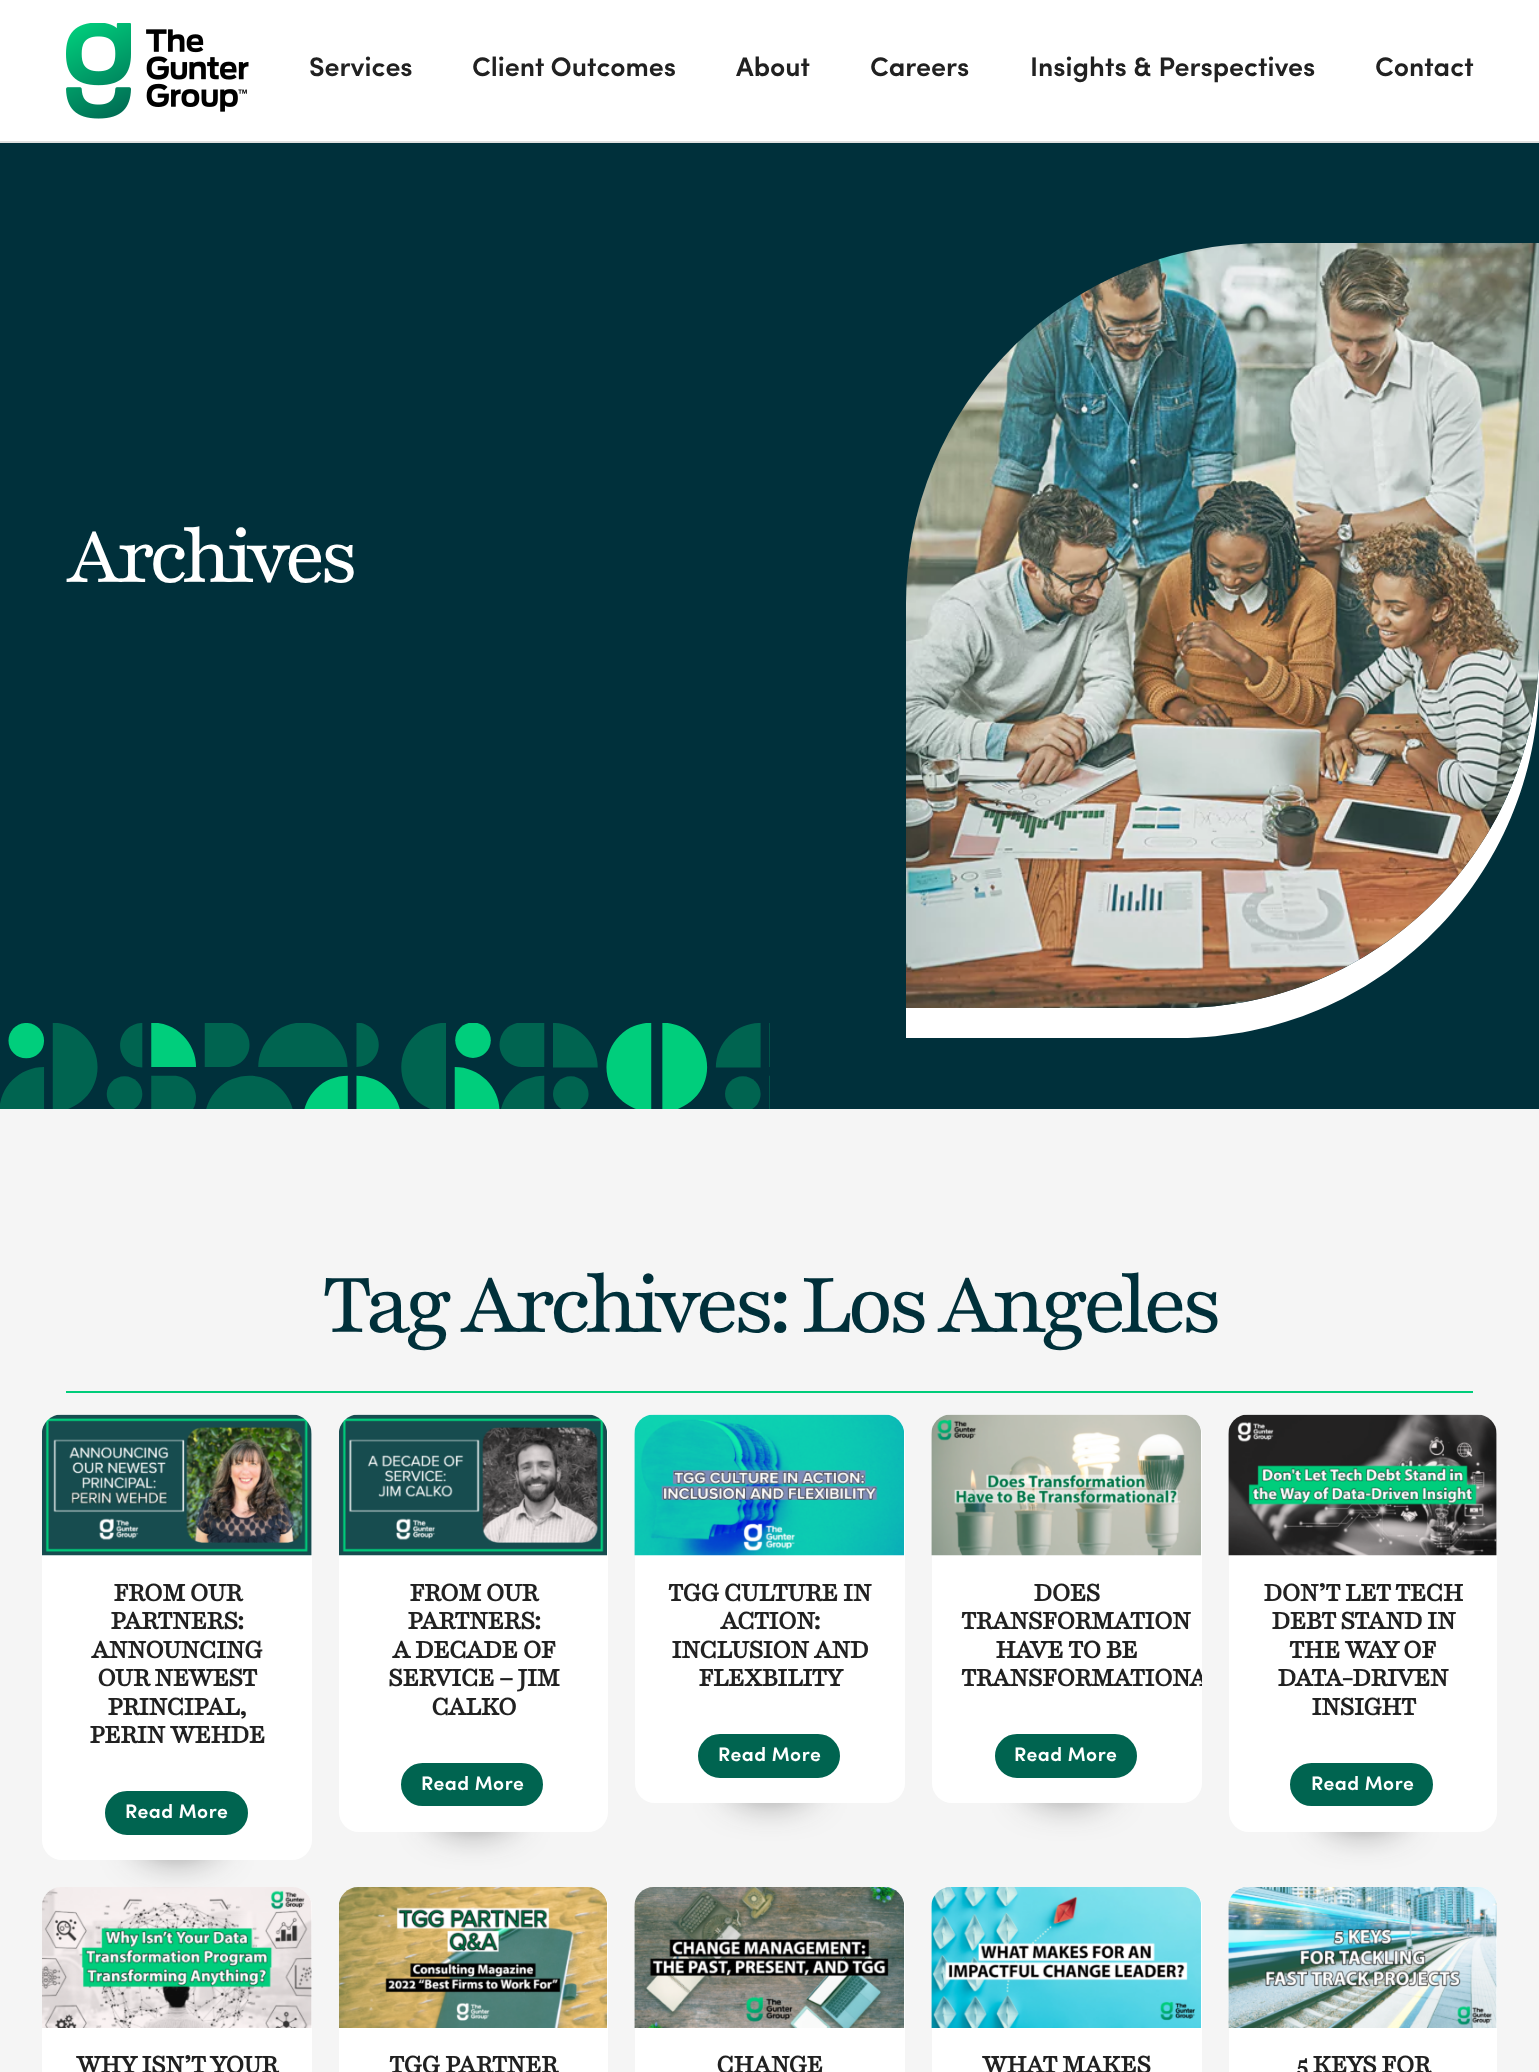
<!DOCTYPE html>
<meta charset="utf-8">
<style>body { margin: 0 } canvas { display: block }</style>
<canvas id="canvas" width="1539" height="2072"></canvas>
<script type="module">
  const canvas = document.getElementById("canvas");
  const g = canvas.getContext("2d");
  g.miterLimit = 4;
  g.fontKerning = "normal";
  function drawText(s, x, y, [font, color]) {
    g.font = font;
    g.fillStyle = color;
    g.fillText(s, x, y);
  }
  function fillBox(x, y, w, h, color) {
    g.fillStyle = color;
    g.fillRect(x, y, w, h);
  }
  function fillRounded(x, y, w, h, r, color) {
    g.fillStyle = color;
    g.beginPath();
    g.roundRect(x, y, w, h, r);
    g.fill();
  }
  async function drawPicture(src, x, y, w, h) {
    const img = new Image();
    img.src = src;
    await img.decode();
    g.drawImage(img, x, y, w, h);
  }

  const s1 = ["600 27px Sofia", "#212121"];
  const s2 = ["88px Playfair", "#FFFFFF"];
  const s3 = ["94.5px Playfair", "#00303A"];
  const s4 = ["bold 28.5px Playfair", "#212121"];
  const s5 = ["600 19.5px Sofia", "#FFFFFF"];

  fillBox(0, 0, 1539, 2072, "#FFFFFF");
  fillBox(0, 141, 1539, 2, "#E0E0E0");
  await drawPicture("pic1.png", 66, 23, 183, 96);
  drawText("Services", 309, 76, s1);
  drawText("Client Outcomes", 472, 76, s1);
  drawText("About", 736, 76, s1);
  drawText("Careers", 870, 76, s1);
  drawText("Insights & Perspectives", 1030, 76, s1);
  drawText("Contact", 1375, 76, s1);
  fillBox(0, 143, 1539, 966, "#00303B");
  g.letterSpacing = "-6.25px";
  drawText("Archives", 66, 582, s2);
  g.beginPath();
  g.moveTo(906, 1008);
  g.lineTo(906, 1038);
  g.lineTo(1179, 1038);
  g.bezierCurveTo(1378, 1038, 1539, 877, 1539, 678);
  g.lineTo(1539, 648);
  g.bezierCurveTo(1539, 847, 1378, 1008, 1179, 1008);
  g.closePath();
  g.fill();
  await drawPicture("pic2.png", 906, 243, 633, 765);
  await drawPicture("pic3.png", 0, 1023, 770, 86);
  fillBox(0, 1109, 1539, 963, "#F5F5F5");
  g.letterSpacing = "-6.6px";
  drawText("Tag Archives: Los Angeles", 322, 1332, s3);
  fillBox(66, 1391, 1407, 2, "#00CC7A");
  g.fillStyle = "#212121";
  g.filter = "blur(22.5px)";
  g.beginPath();
  g.rect(147, 1610, 60, 235);
  g.fill();
  g.filter = "none";
  fillRounded(42, 1415, 270, 445, 20, "#FFFFFF");
  await drawPicture("pic4.png", 42, 1414, 270, 142);
  g.letterSpacing = "-1px";
  drawText("FROM OUR", 113, 1601, s4);
  drawText("PARTNERS:", 110, 1629, s4);
  drawText("ANNOUNCING", 91, 1658, s4);
  drawText("OUR NEWEST", 97, 1686, s4);
  drawText("PRINCIPAL,", 107, 1715, s4);
  drawText("PERIN WEHDE", 89, 1743, s4);
  g.fillStyle = "#006450";
  g.beginPath();
  g.roundRect(106, 1792, 141, 42, 21);
  g.fill();
  g.strokeStyle = "#006450";
  g.lineWidth = 2;
  g.stroke();
  g.letterSpacing = "0.5px";
  drawText("Read More", 125, 1818, s5);
  g.fillStyle = "#212121";
  g.filter = "blur(22.5px)";
  g.beginPath();
  g.rect(444, 1610, 59, 207);
  g.fill();
  g.filter = "none";
  fillRounded(339, 1415, 269, 417, 20, "#FFFFFF");
  await drawPicture("pic5.png", 339, 1414, 268, 142);
  g.letterSpacing = "-1px";
  drawText("FROM OUR", 409, 1601, s4);
  drawText("PARTNERS:", 407, 1629, s4);
  drawText("A DECADE OF", 392, 1658, s4);
  drawText("SERVICE – JIM", 388, 1686, s4);
  drawText("CALKO", 431, 1715, s4);
  g.fillStyle = "#006450";
  g.beginPath();
  g.roundRect(402, 1764, 140, 41, 20.5);
  g.fill();
  g.stroke();
  g.letterSpacing = "0.5px";
  drawText("Read More", 421, 1790, s5);
  g.fillStyle = "#212121";
  g.filter = "blur(22.5px)";
  g.beginPath();
  g.rect(740, 1610, 60, 178);
  g.fill();
  g.filter = "none";
  fillRounded(635, 1415, 270, 388, 20, "#FFFFFF");
  await drawPicture("pic6.png", 634, 1414, 270, 142);
  g.letterSpacing = "-1px";
  drawText("TGG CULTURE IN", 668, 1601, s4);
  drawText("ACTION:", 720, 1629, s4);
  drawText("INCLUSION AND", 671, 1658, s4);
  drawText("FLEXBILITY", 698, 1686, s4);
  g.fillStyle = "#006450";
  g.beginPath();
  g.roundRect(699, 1735, 140, 42, 21);
  g.fill();
  g.stroke();
  g.letterSpacing = "0.5px";
  drawText("Read More", 718, 1761, s5);
  g.fillStyle = "#212121";
  g.filter = "blur(22.5px)";
  g.beginPath();
  g.rect(1037, 1610, 60, 178);
  g.fill();
  g.filter = "none";
  fillRounded(932, 1415, 270, 388, 20, "#FFFFFF");
  await drawPicture("pic7.png", 931, 1414, 270, 142);
  g.letterSpacing = "-1px";
  drawText("DOES", 1033, 1601, s4);
  drawText("TRANSFORMATION", 961, 1629, s4);
  drawText("HAVE TO BE", 995, 1658, s4);
  g.save();
  g.beginPath();
  g.roundRect(932, 1415, 270, 388, 20);
  g.clip();
  drawText("TRANSFORMATIONA", 961, 1686, s4);
  g.restore();
  g.fillStyle = "#006450";
  g.beginPath();
  g.roundRect(996, 1735, 140, 42, 21);
  g.fill();
  g.stroke();
  g.letterSpacing = "0.5px";
  drawText("Read More", 1014, 1761, s5);
  g.fillStyle = "#212121";
  g.filter = "blur(22.5px)";
  g.beginPath();
  g.rect(1334, 1610, 58, 207);
  g.fill();
  g.filter = "none";
  fillRounded(1229, 1415, 268, 417, 20, "#FFFFFF");
  await drawPicture("pic8.png", 1228, 1414, 269, 142);
  g.letterSpacing = "-1px";
  drawText("DON’T LET TECH", 1263, 1601, s4);
  drawText("DEBT STAND IN", 1271, 1629, s4);
  drawText("THE WAY OF", 1289, 1658, s4);
  drawText("DATA-DRIVEN", 1277, 1686, s4);
  drawText("INSIGHT", 1311, 1715, s4);
  g.fillStyle = "#006450";
  g.beginPath();
  g.roundRect(1291, 1764, 141, 41, 20.5);
  g.fill();
  g.stroke();
  g.letterSpacing = "0.5px";
  drawText("Read More", 1311, 1790, s5);
  fillRounded(42, 1887, 270, 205, 20, "#FFFFFF");
  await drawPicture("pic9.png", 42, 1887, 270, 141);
  g.letterSpacing = "-1px";
  drawText("WHY ISN’T YOUR", 76, 2073, s4);
  fillRounded(339, 1887, 269, 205, 20, "#FFFFFF");
  await drawPicture("pic10.png", 339, 1887, 268, 141);
  drawText("TGG PARTNER", 389, 2073, s4);
  fillRounded(635, 1887, 270, 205, 20, "#FFFFFF");
  await drawPicture("pic11.png", 634, 1887, 270, 141);
  drawText("CHANGE", 716, 2073, s4);
  fillRounded(932, 1887, 270, 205, 20, "#FFFFFF");
  await drawPicture("pic12.png", 931, 1887, 270, 141);
  drawText("WHAT MAKES", 982, 2073, s4);
  fillRounded(1229, 1887, 268, 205, 20, "#FFFFFF");
  await drawPicture("pic13.png", 1228, 1887, 269, 141);
  drawText("5 KEYS FOR", 1296, 2073, s4);
</script>
